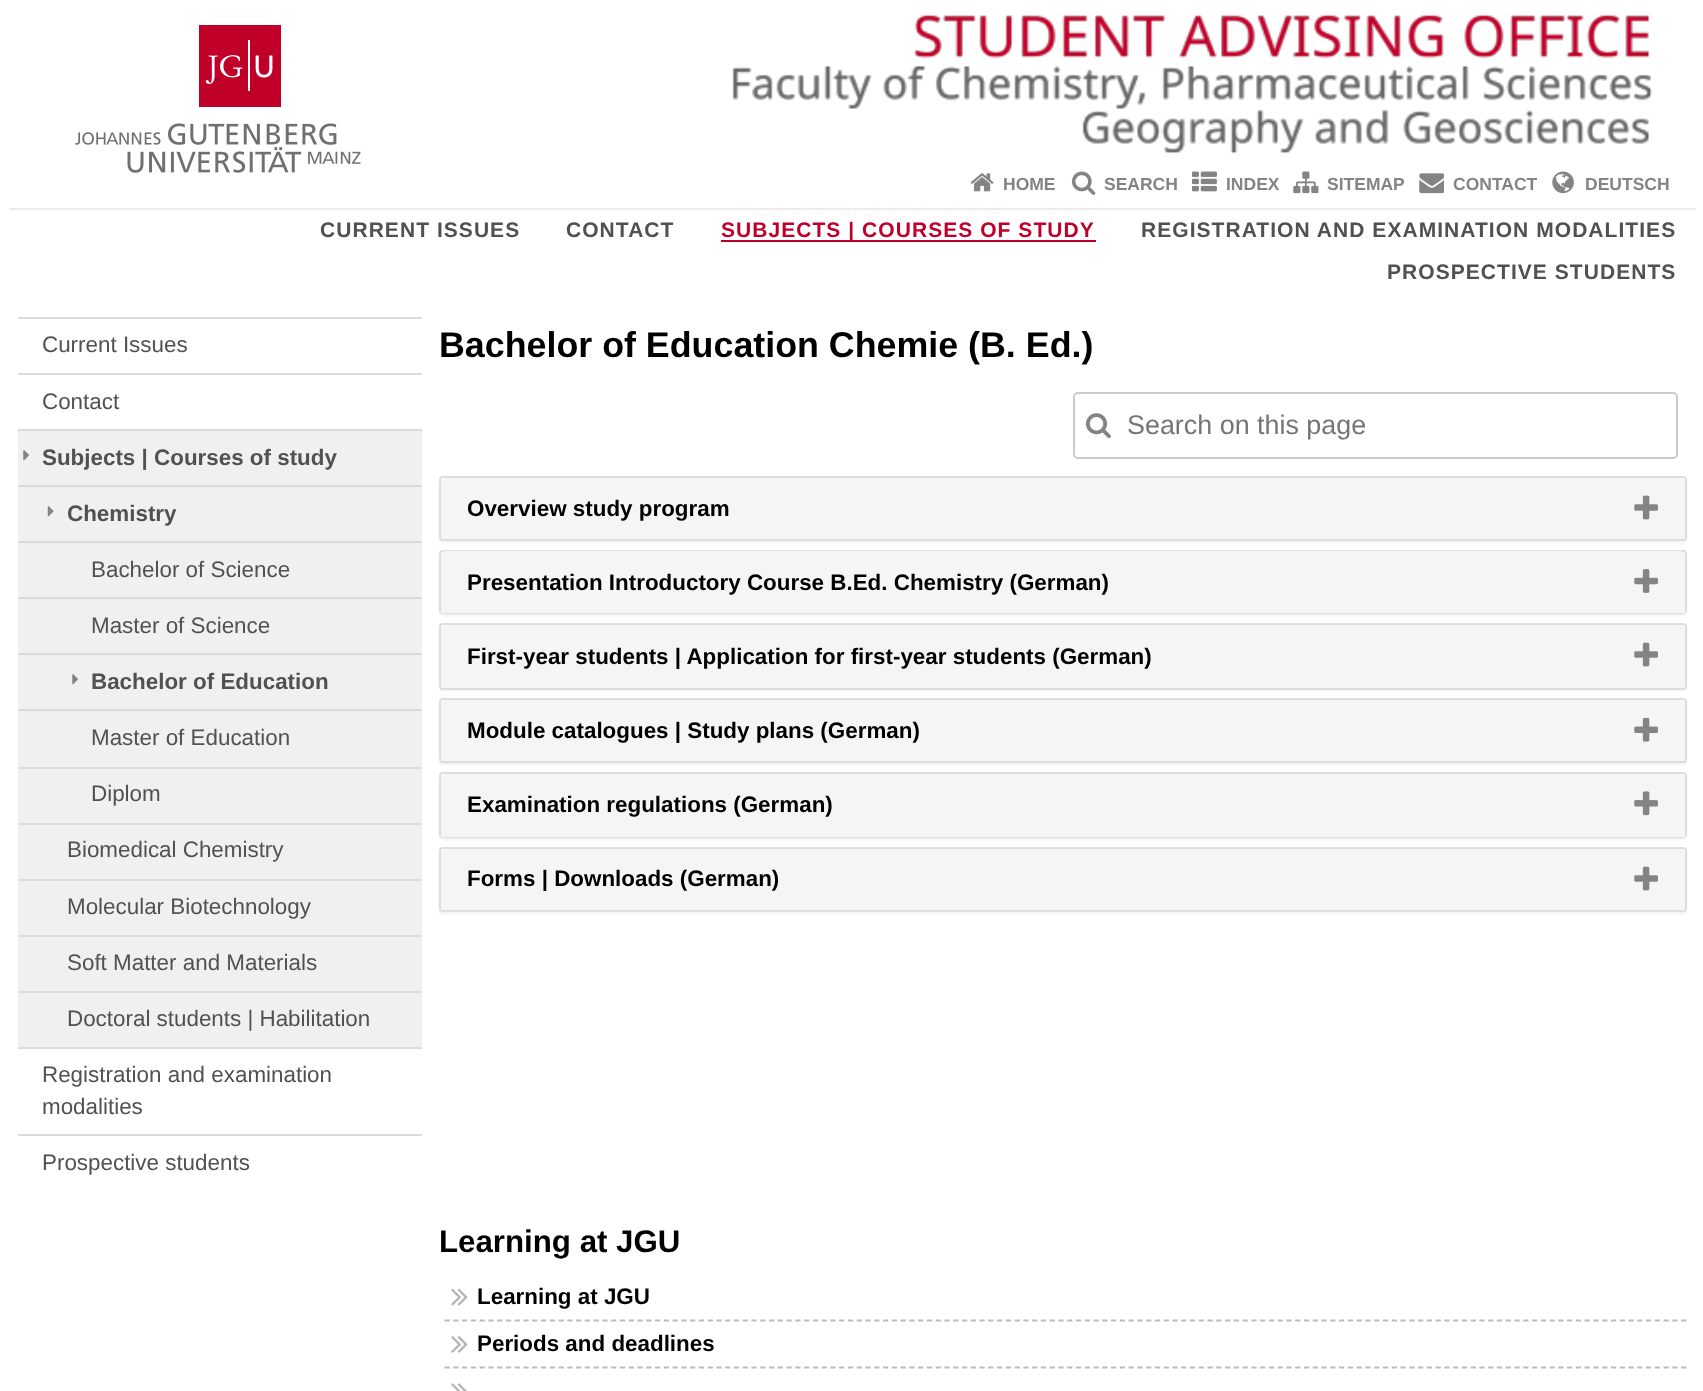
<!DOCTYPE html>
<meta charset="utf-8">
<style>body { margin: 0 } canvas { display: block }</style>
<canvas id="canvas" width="1703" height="1391"></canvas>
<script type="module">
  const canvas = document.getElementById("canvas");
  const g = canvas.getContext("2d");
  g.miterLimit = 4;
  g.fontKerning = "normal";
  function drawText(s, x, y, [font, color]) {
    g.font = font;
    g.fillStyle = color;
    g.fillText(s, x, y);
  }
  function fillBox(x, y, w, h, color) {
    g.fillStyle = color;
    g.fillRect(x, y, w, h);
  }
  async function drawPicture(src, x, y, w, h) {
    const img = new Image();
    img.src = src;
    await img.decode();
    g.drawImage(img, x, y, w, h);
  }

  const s1 = ["bold 17.5px Liberation Sans", "#848484"];
  const s2 = ["bold 21px Liberation Sans", "#515151"];
  const s3 = ["bold 21px Liberation Sans", "#C1002A"];
  const s4 = ["22.4px Liberation Sans", "#515151"];
  const s5 = ["bold 22.4px Liberation Sans", "#515151"];
  const s6 = ["bold 35.8px Liberation Sans", "#000000"];
  const s7 = ["26.9px Liberation Sans", "#757575"];
  const s8 = ["bold 22.4px Liberation Sans", "#000000"];
  const s9 = ["bold 31.25px Liberation Sans", "#000000"];

  fillBox(0, 0, 1703, 1391, "#FFFFFF");
  await drawPicture("pic1.png", 75, 25, 286, 148);
  await drawPicture("pic2.png", 732, 14, 921, 140);
  await drawPicture("pic3.png", 970, 173, 24, 19);
  drawText("HOME", 1003, 190, s1);
  await drawPicture("pic4.png", 1071, 171, 25, 24);
  drawText("SEARCH", 1104, 190, s1);
  await drawPicture("pic5.png", 1192, 171, 25, 21);
  drawText("INDEX", 1226, 190, s1);
  await drawPicture("pic6.png", 1293, 171, 26, 23);
  drawText("SITEMAP", 1327, 190, s1);
  await drawPicture("pic7.png", 1419, 173, 25, 21);
  drawText("CONTACT", 1453, 190, s1);
  await drawPicture("pic8.png", 1552, 171, 22, 23);
  drawText("DEUTSCH", 1585, 190, s1);
  fillBox(9, 208, 1687, 2, "#EBEBEB");
  g.letterSpacing = "1.05px";
  drawText("CURRENT ISSUES", 320, 237, s2);
  drawText("CONTACT", 566, 237, s2);
  fillBox(721, 240, 375, 2, "#C1002A");
  drawText("SUBJECTS | COURSES OF STUDY", 721, 237, s3);
  drawText("REGISTRATION AND EXAMINATION MODALITIES", 1141, 237, s2);
  drawText("PROSPECTIVE STUDENTS", 1387, 279, s2);
  fillBox(18, 317, 404, 2, "#DADADA");
  g.letterSpacing = "0px";
  drawText("Current Issues", 42, 352, s4);
  fillBox(18, 373, 404, 2, "#DADADA");
  drawText("Contact", 42, 409, s4);
  fillBox(18, 431, 404, 616, "#F0F0F0");
  fillBox(18, 429, 404, 2, "#DADADA");
  await drawPicture("pic9.png", 23, 450, 6, 11);
  drawText("Subjects | Courses of study", 42, 465, s5);
  fillBox(18, 485, 404, 2, "#DADADA");
  await drawPicture("pic10.png", 47, 506, 7, 11);
  drawText("Chemistry", 67, 521, s5);
  fillBox(18, 541, 404, 2, "#DADADA");
  drawText("Bachelor of Science", 91, 577, s4);
  fillBox(18, 597, 404, 2, "#DADADA");
  drawText("Master of Science", 91, 633, s4);
  fillBox(18, 653, 404, 2, "#DADADA");
  await drawPicture("pic9.png", 72, 674, 6, 11);
  drawText("Bachelor of Education", 91, 689, s5);
  fillBox(18, 709, 404, 2, "#DADADA");
  drawText("Master of Education", 91, 745, s4);
  fillBox(18, 767, 404, 2, "#DADADA");
  drawText("Diplom", 91, 801, s4);
  fillBox(18, 823, 404, 2, "#DADADA");
  drawText("Biomedical Chemistry", 67, 857, s4);
  fillBox(18, 879, 404, 2, "#DADADA");
  drawText("Molecular Biotechnology", 67, 914, s4);
  fillBox(18, 935, 404, 2, "#DADADA");
  drawText("Soft Matter and Materials", 67, 970, s4);
  fillBox(18, 991, 404, 2, "#DADADA");
  drawText("Doctoral students | Habilitation", 67, 1026, s4);
  fillBox(18, 1047, 404, 2, "#DADADA");
  drawText("Registration and examination", 42, 1082, s4);
  drawText("modalities", 42, 1114, s4);
  fillBox(18, 1134, 404, 2, "#DADADA");
  drawText("Prospective students", 42, 1170, s4);
  drawText("Bachelor of Education Chemie (B. Ed.)", 439, 357, s6);
  await drawPicture("pic11.png", 1086, 413, 25, 25);
  g.beginPath();
  g.roundRect(1074, 393, 603, 65, 4);
  g.strokeStyle = "#CACACA";
  g.lineWidth = 2;
  g.stroke();
  drawText("Search on this page", 1127, 434, s7);
  g.fillStyle = "rgba(0, 0, 0, 0.05)";
  g.filter = "blur(1px)";
  g.beginPath();
  g.roundRect(439, 478, 1248, 65, 4);
  g.fill();
  g.filter = "none";
  g.fillStyle = "#FFFFFF";
  g.beginPath();
  g.roundRect(440, 477, 1246, 63, 3);
  g.fill();
  g.strokeStyle = "#DDDDDD";
  g.stroke();
  g.fillStyle = "#F5F5F5";
  g.beginPath();
  g.roundRect(441, 478, 1244, 61, [5, 5, 0, 0]);
  g.fill();
  await drawPicture("pic12.png", 1634, 495, 24, 25);
  drawText("Overview study program", 467, 516, s8);
  g.fillStyle = "rgba(0, 0, 0, 0.05)";
  g.filter = "blur(1px)";
  g.beginPath();
  g.roundRect(439, 551, 1248, 65, 4);
  g.fill();
  g.filter = "none";
  g.fillStyle = "#FFFFFF";
  g.beginPath();
  g.roundRect(440, 551, 1246, 62, 3);
  g.fill();
  g.stroke();
  g.fillStyle = "#F5F5F5";
  g.beginPath();
  g.roundRect(441, 551, 1244, 62, [5, 5, 0, 0]);
  g.fill();
  await drawPicture("pic13.png", 1634, 569, 24, 24);
  drawText("Presentation Introductory Course B.Ed. Chemistry (German)", 467, 590, s8);
  g.fillStyle = "rgba(0, 0, 0, 0.05)";
  g.filter = "blur(1px)";
  g.beginPath();
  g.roundRect(439, 625, 1248, 66, 4);
  g.fill();
  g.filter = "none";
  g.fillStyle = "#FFFFFF";
  g.beginPath();
  g.roundRect(440, 624, 1246, 65, 3);
  g.fill();
  g.stroke();
  g.fillStyle = "#F5F5F5";
  g.beginPath();
  g.roundRect(441, 625, 1244, 63, [5, 5, 0, 0]);
  g.fill();
  await drawPicture("pic12.png", 1634, 642, 24, 25);
  drawText("First-year students | Application for first-year students (German)", 467, 664, s8);
  g.fillStyle = "rgba(0, 0, 0, 0.05)";
  g.filter = "blur(1px)";
  g.beginPath();
  g.roundRect(439, 700, 1248, 65, 4);
  g.fill();
  g.filter = "none";
  g.fillStyle = "#FFFFFF";
  g.beginPath();
  g.roundRect(440, 699, 1246, 63, 3);
  g.fill();
  g.stroke();
  g.fillStyle = "#F5F5F5";
  g.beginPath();
  g.roundRect(441, 700, 1244, 61, [5, 5, 0, 0]);
  g.fill();
  await drawPicture("pic14.png", 1634, 717, 24, 25);
  drawText("Module catalogues | Study plans (German)", 467, 738, s8);
  g.fillStyle = "rgba(0, 0, 0, 0.05)";
  g.filter = "blur(1px)";
  g.beginPath();
  g.roundRect(439, 774, 1248, 66, 4);
  g.fill();
  g.filter = "none";
  g.fillStyle = "#FFFFFF";
  g.beginPath();
  g.roundRect(440, 773, 1246, 64, 3);
  g.fill();
  g.stroke();
  g.fillStyle = "#F5F5F5";
  g.beginPath();
  g.roundRect(441, 774, 1244, 63, [5, 5, 0, 0]);
  g.fill();
  await drawPicture("pic15.png", 1634, 791, 24, 25);
  drawText("Examination regulations (German)", 467, 812, s8);
  g.fillStyle = "rgba(0, 0, 0, 0.05)";
  g.filter = "blur(1px)";
  g.beginPath();
  g.roundRect(439, 849, 1248, 65, 4);
  g.fill();
  g.filter = "none";
  g.fillStyle = "#FFFFFF";
  g.beginPath();
  g.roundRect(440, 848, 1246, 63, 3);
  g.fill();
  g.stroke();
  g.fillStyle = "#F5F5F5";
  g.beginPath();
  g.roundRect(441, 849, 1244, 61, [5, 5, 0, 0]);
  g.fill();
  await drawPicture("pic12.png", 1634, 866, 24, 25);
  drawText("Forms | Downloads (German)", 467, 886, s8);
  drawText("Learning at JGU", 439, 1252, s9);
  await drawPicture("pic16.png", 451, 1288, 17, 18);
  g.beginPath();
  g.moveTo(444.5, 1320.5);
  g.lineTo(1687, 1320.5);
  g.strokeStyle = "#BCBCBC";
  g.lineWidth = 1.8;
  g.setLineDash([5.25, 3.52]);
  g.stroke();
  drawText("Learning at JGU", 477, 1304, s8);
  await drawPicture("pic17.png", 451, 1336, 17, 17);
  g.beginPath();
  g.moveTo(444.5, 1367.5);
  g.lineTo(1687, 1367.5);
  g.stroke();
  drawText("Periods and deadlines", 477, 1351, s8);
  await drawPicture("pic18.png", 451, 1383, 16, 8);
</script>
